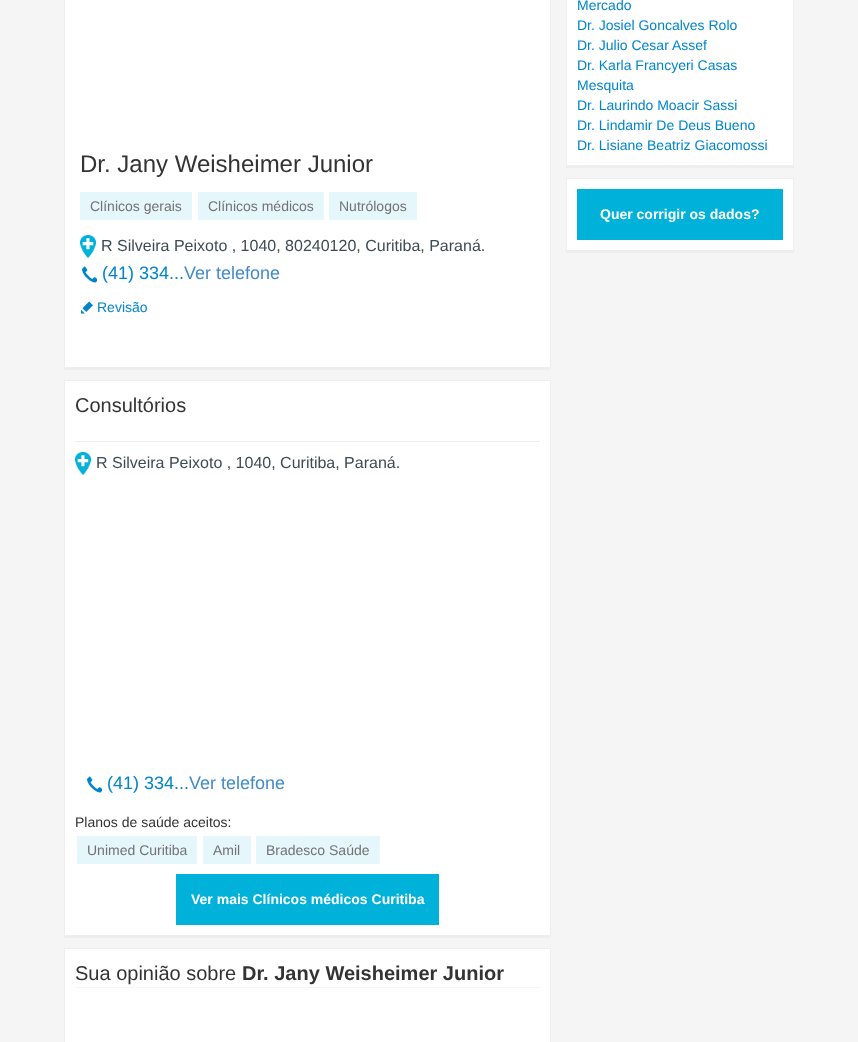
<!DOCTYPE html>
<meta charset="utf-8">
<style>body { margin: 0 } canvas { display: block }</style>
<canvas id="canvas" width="858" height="1042"></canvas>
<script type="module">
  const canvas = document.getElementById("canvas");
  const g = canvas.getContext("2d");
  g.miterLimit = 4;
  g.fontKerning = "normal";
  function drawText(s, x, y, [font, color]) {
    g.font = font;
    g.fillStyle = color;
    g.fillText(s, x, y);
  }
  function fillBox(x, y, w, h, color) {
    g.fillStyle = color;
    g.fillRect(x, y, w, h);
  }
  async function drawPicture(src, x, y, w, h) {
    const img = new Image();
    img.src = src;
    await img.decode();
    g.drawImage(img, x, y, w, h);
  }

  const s1 = ["14px Liberation Sans", "#0085CB"];
  const s2 = ["bold 14px Liberation Sans", "#FFFFFF"];
  const s3 = ["24px Liberation Sans", "#333333"];
  const s4 = ["14px Liberation Sans", "#727272"];
  const s5 = ["16px Liberation Sans", "#3E4C52"];
  const s6 = ["18px Liberation Sans", "#0085CB"];
  const s7 = ["18px Liberation Sans", "#428BCA"];
  const s8 = ["20px Liberation Sans", "#333333"];
  const s9 = ["14px Liberation Sans", "#333333"];
  const s10 = ["bold 20px Liberation Sans", "#333333"];

  fillBox(0, 0, 858, 1042, "#F5F5F5");
  fillBox(567, 0, 226, 165, "#FFFFFF");
  fillBox(793, 0, 1, 168, "#EEEEEE");
  fillBox(566, 165, 228, 3, "#EEEEEE");
  fillBox(566, 0, 1, 168, "#EEEEEE");
  drawText("Mercado", 577, 10, s1);
  drawText("Dr. Josiel Goncalves Rolo", 577, 30, s1);
  drawText("Dr. Julio Cesar Assef", 577, 50, s1);
  drawText("Dr. Karla Francyeri Casas", 577, 70, s1);
  drawText("Mesquita", 577, 90, s1);
  drawText("Dr. Laurindo Moacir Sassi", 577, 110, s1);
  drawText("Dr. Lindamir De Deus Bueno", 577, 130, s1);
  drawText("Dr. Lisiane Beatriz Giacomossi", 577, 150, s1);
  fillBox(567, 179, 226, 71, "#FFFFFF");
  fillBox(566, 178, 228, 1, "#EEEEEE");
  fillBox(793, 178, 1, 75, "#EEEEEE");
  fillBox(566, 250, 228, 3, "#EEEEEE");
  fillBox(566, 178, 1, 75, "#EEEEEE");
  fillBox(577, 189, 206, 51, "#00B1D9");
  drawText("Quer corrigir os dados?", 600, 219, s2);
  fillBox(65, 0, 485, 367, "#FFFFFF");
  fillBox(550, 0, 1, 370, "#EEEEEE");
  fillBox(64, 367, 487, 3, "#EEEEEE");
  fillBox(64, 0, 1, 370, "#EEEEEE");
  drawText("Dr. Jany Weisheimer Junior", 80, 172, s3);
  fillBox(80, 192, 112, 28, "#E5F7FB");
  drawText("Clínicos gerais", 90, 211, s4);
  fillBox(198, 192, 126, 28, "#E5F7FB");
  drawText("Clínicos médicos", 208, 211, s4);
  fillBox(329, 192, 88, 28, "#E5F7FB");
  drawText("Nutrólogos", 339, 211, s4);
  await drawPicture("pic1.png", 80, 235, 16, 23);
  drawText("R Silveira Peixoto , 1040, 80240120, Curitiba, Paraná.", 101, 251, s5);
  await drawPicture("pic2.png", 82, 266, 15, 17);
  drawText("(41) 334...", 102, 279, s6);
  drawText("Ver telefone", 184, 279, s7);
  await drawPicture("pic3.png", 81, 301, 12, 13);
  drawText("Revisão", 97, 312, s1);
  fillBox(65, 381, 485, 554, "#FFFFFF");
  fillBox(64, 380, 487, 1, "#EEEEEE");
  fillBox(550, 380, 1, 558, "#EEEEEE");
  fillBox(64, 935, 487, 3, "#EEEEEE");
  fillBox(64, 380, 1, 558, "#EEEEEE");
  drawText("Consultórios", 75, 412, s8);
  fillBox(75, 441, 465, 1, "#EEEEEE");
  await drawPicture("pic4.png", 75, 452, 16, 23);
  drawText("R Silveira Peixoto , 1040, Curitiba, Paraná.", 96, 468, s5);
  await drawPicture("pic2.png", 87, 776, 15, 17);
  drawText("(41) 334...", 107, 789, s6);
  drawText("Ver telefone", 189, 789, s7);
  drawText("Planos de saúde aceitos:", 75, 827, s9);
  fillBox(77, 836, 120, 28, "#E5F7FB");
  drawText("Unimed Curitiba", 87, 855, s4);
  fillBox(203, 836, 48, 28, "#E5F7FB");
  drawText("Amil", 213, 855, s4);
  fillBox(256, 836, 124, 28, "#E5F7FB");
  drawText("Bradesco Saúde", 266, 855, s4);
  fillBox(176, 874, 263, 51, "#00B1D9");
  drawText("Ver mais Clínicos médicos Curitiba", 191, 904, s2);
  fillBox(65, 949, 485, 93, "#FFFFFF");
  fillBox(64, 948, 487, 1, "#EEEEEE");
  fillBox(550, 948, 1, 94, "#EEEEEE");
  fillBox(64, 948, 1, 94, "#EEEEEE");
  fillBox(75, 987, 465, 1, "#F5F5F5");
  drawText("Sua opinião sobre", 75, 980, s8);
  drawText("Dr. Jany Weisheimer Junior", 242, 980, s10);
</script>
